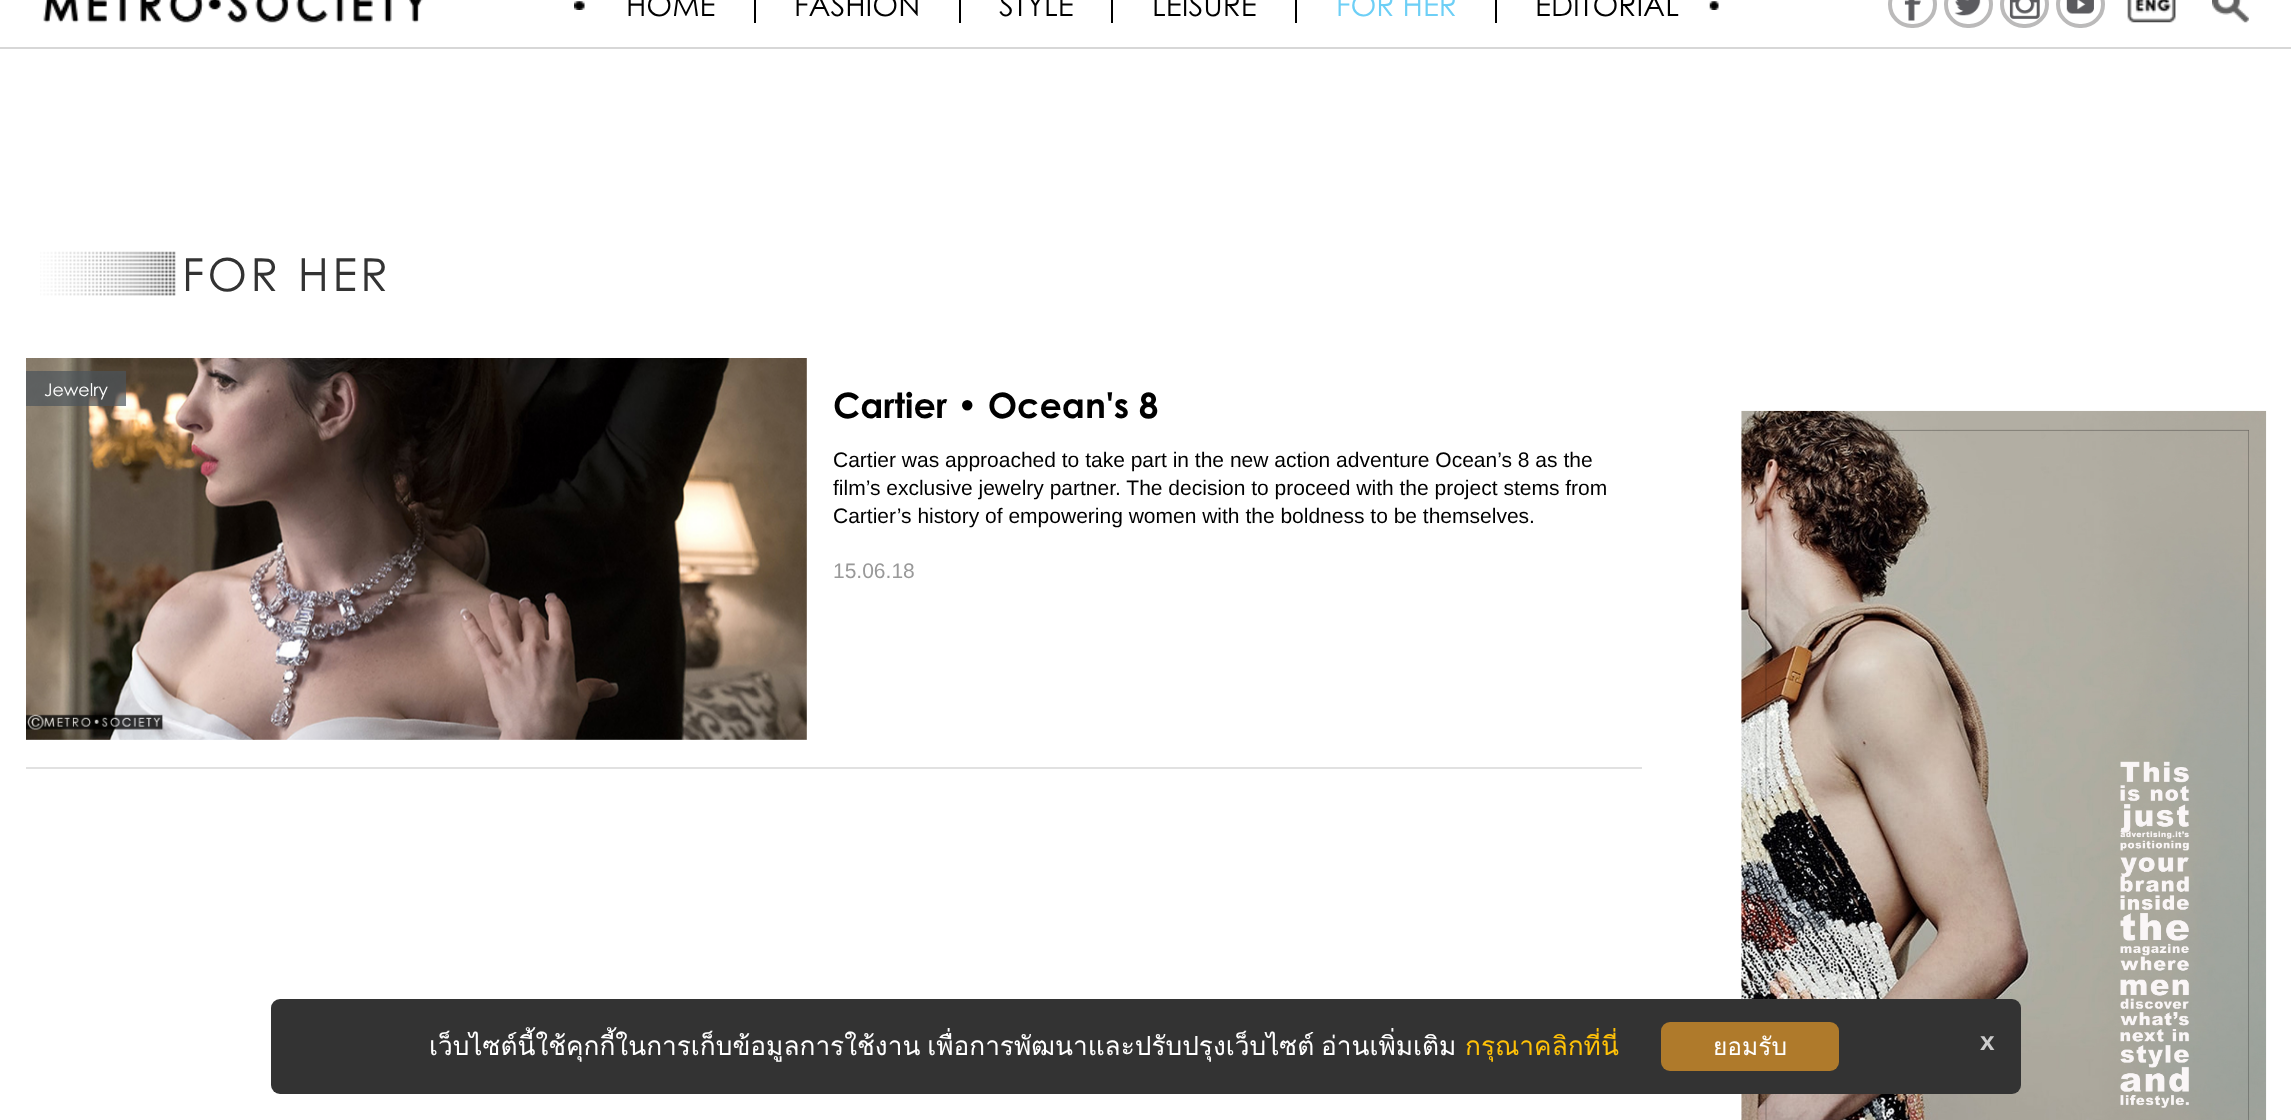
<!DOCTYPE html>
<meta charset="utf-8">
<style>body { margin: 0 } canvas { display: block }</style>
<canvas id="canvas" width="2291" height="1120"></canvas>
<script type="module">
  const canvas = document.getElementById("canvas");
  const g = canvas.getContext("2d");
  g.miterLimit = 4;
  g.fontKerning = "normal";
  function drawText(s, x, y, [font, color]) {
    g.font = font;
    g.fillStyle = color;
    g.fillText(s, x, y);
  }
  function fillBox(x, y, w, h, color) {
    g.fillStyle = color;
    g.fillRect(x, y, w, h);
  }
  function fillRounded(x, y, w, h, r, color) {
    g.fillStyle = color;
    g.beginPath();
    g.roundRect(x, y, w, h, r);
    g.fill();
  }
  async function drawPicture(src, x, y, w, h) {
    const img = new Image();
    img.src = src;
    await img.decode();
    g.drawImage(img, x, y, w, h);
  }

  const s1 = ["29.75px Century Gothic", "#000000"];
  const s2 = ["29.75px Century Gothic", "#6DCFF6"];
  const s3 = ["45.5px Century Gothic", "#333333"];
  const s4 = ["17.5px Century Gothic", "#FFFFFF"];
  const s5 = ["bold 35px Century Gothic", "#000000"];
  const s6 = ["21px Liberation Sans", "#000000"];
  const s7 = ["21px Liberation Sans", "#999999"];
  const s8 = ["26.25px Loma", "#FFFFFF"];
  const s9 = ["26.25px Loma", "#FFC107"];
  const s10 = ["24.5px Loma", "#FFFFFF"];
  const s11 = ["bold 26.25px Liberation Sans", "#CCCCCC"];

  fillBox(0, 0, 2291, 1120, "#FFFFFF");
  fillBox(0, 47, 2291, 2, "#D7D7D7");
  await drawPicture("pic1.png", 43, 0, 380, 23);
  await drawPicture("pic2.png", 574, 1, 11, 9);
  await drawPicture("pic3.png", 1709, 1, 10, 9);
  fillBox(754, 0, 2, 23, "#000000");
  drawText("HOME", 626, 16, s1);
  fillBox(959, 0, 2, 23, "#000000");
  drawText("FASHION", 794, 16, s1);
  fillBox(1111, 0, 2, 23, "#000000");
  drawText("STYLE", 999, 16, s1);
  fillBox(1295, 0, 2, 23, "#000000");
  drawText("LEISURE", 1152, 16, s1);
  fillBox(1495, 0, 2, 23, "#000000");
  drawText("FOR HER", 1336, 16, s2);
  drawText("EDITORIAL", 1535, 16, s1);
  g.beginPath();
  g.roundRect(1890, -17, 45, 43, 21.5);
  g.strokeStyle = "#BBBABA";
  g.lineWidth = 4;
  g.stroke();
  await drawPicture("pic4.png", 1904, 0, 17, 21);
  g.beginPath();
  g.roundRect(1946, -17, 45, 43, 21.5);
  g.stroke();
  await drawPicture("pic5.png", 1954, 0, 27, 16);
  g.beginPath();
  g.roundRect(2002, -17, 45, 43, 21.5);
  g.stroke();
  await drawPicture("pic6.png", 2009, 0, 31, 19);
  g.beginPath();
  g.roundRect(2058, -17, 45, 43, 21.5);
  g.stroke();
  await drawPicture("pic7.png", 2066, 0, 28, 14);
  await drawPicture("pic8.png", 2127, 0, 49, 23);
  await drawPicture("pic9.png", 2212, 0, 37, 23);
  await drawPicture("pic10.png", 40, 251, 136, 45);
  g.letterSpacing = "3.5px";
  drawText("FOR HER", 182, 291, s3);
  fillBox(26, 767, 1616, 2, "#E1E1E1");
  await drawPicture("pic11.png", 26, 358, 781, 382);
  fillBox(26, 371, 100, 35, "rgba(75, 84, 91, 0.7)");
  g.letterSpacing = "0px";
  drawText("Jewelry", 44, 396, s4);
  drawText("Cartier • Ocean's 8", 833, 418, s5);
  drawText("Cartier was approached to take part in the new action adventure Ocean’s 8 as the", 833, 467, s6);
  drawText("film’s exclusive jewelry partner. The decision to proceed with the project stems from", 833, 495, s6);
  drawText("Cartier’s history of empowering women with the boldness to be themselves.", 833, 523, s6);
  drawText("15.06.18", 833, 578, s7);
  await drawPicture("pic12.png", 1741, 410, 526, 710);
  fillRounded(271, 999, 1750, 95, 9, "#333333");
  g.wordSpacing = "-2px";
  drawText("เว็บไซต์นี้ใช้คุกกี้ในการเก็บข้อมูลการใช้งาน เพื่อการพัฒนาและปรับปรุงเว็บไซต์ อ่านเพิ่มเติม", 429, 1055, s8);
  g.wordSpacing = "0px";
  drawText("กรุณาคลิกที่นี่", 1465, 1055, s9);
  fillRounded(1661, 1022, 178, 49, 9, "#AF7A2B");
  drawText("ยอมรับ", 1713, 1055, s10);
  drawText("x", 1980, 1050, s11);
</script>
